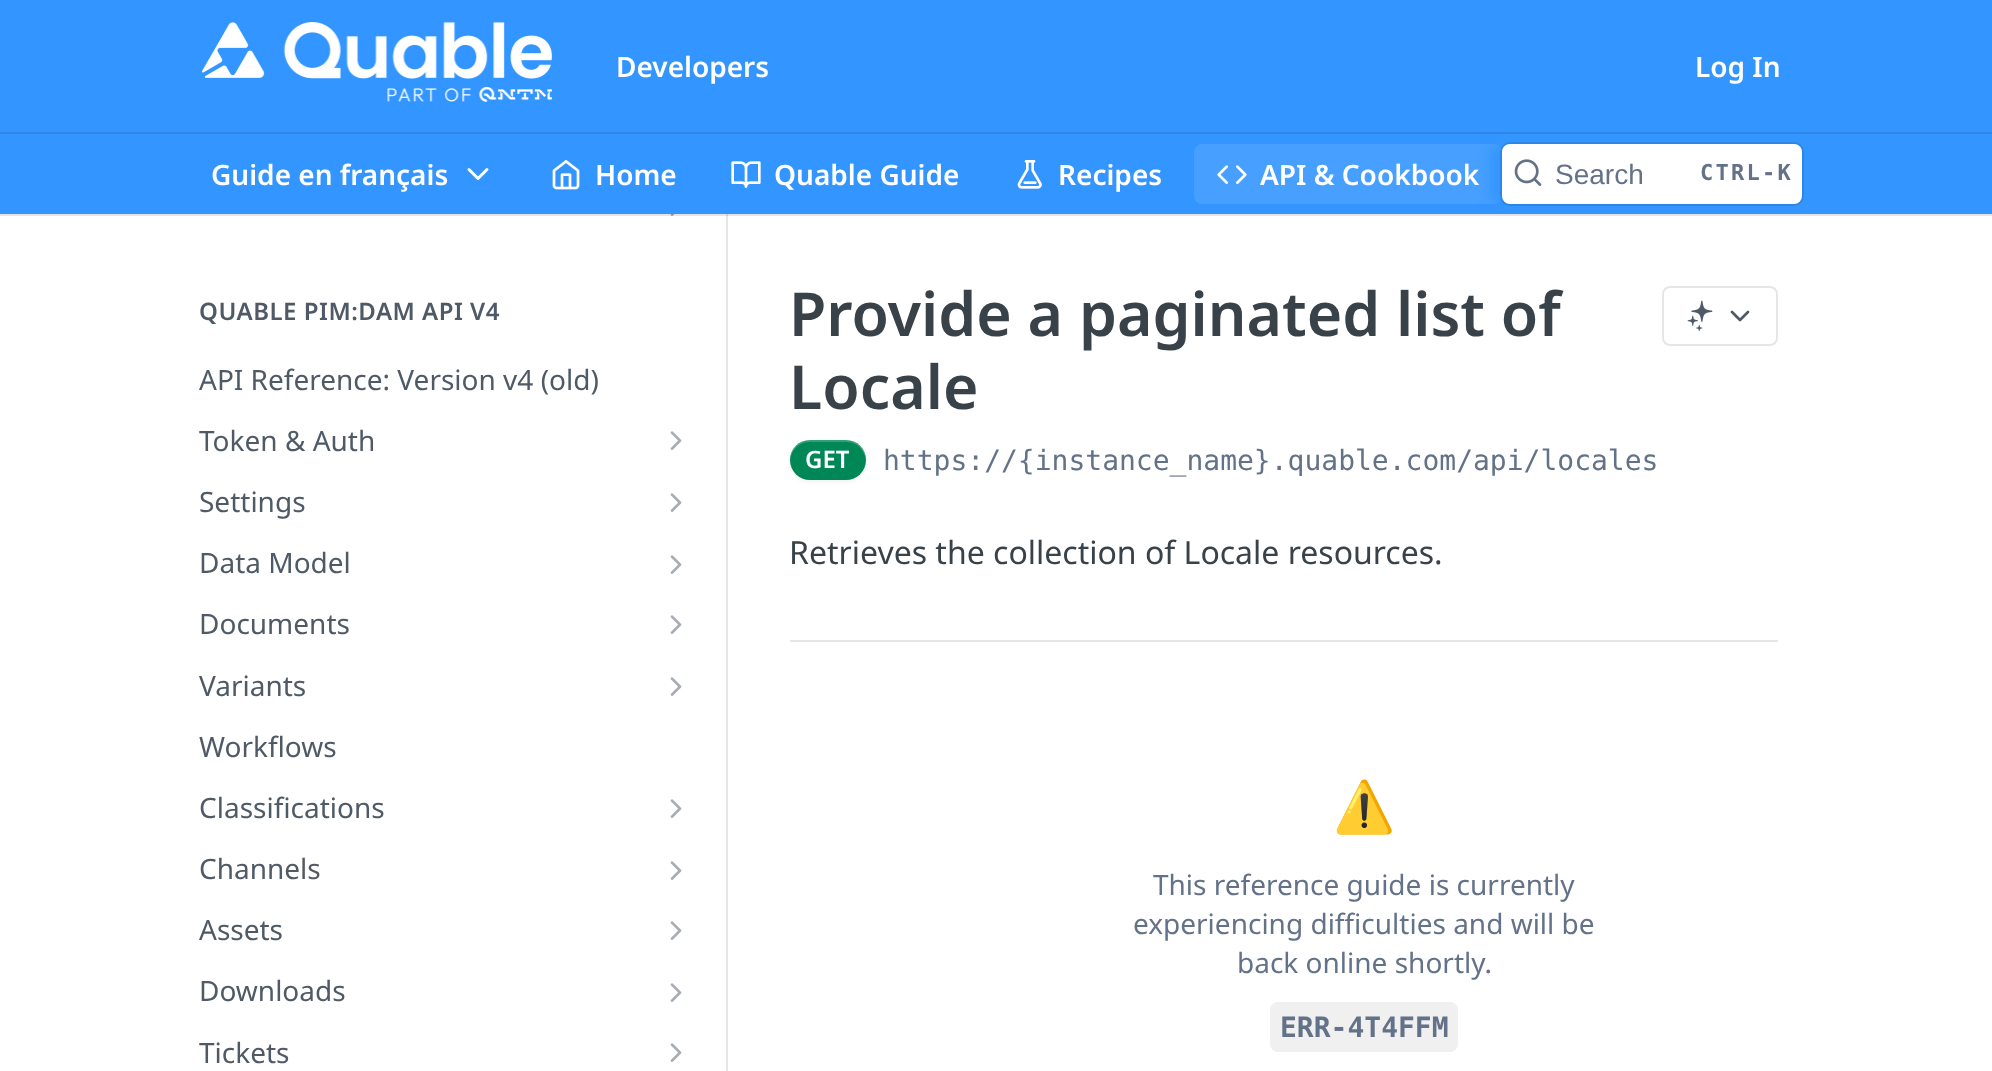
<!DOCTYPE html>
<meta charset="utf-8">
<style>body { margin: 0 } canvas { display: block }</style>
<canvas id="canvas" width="1992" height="1071"></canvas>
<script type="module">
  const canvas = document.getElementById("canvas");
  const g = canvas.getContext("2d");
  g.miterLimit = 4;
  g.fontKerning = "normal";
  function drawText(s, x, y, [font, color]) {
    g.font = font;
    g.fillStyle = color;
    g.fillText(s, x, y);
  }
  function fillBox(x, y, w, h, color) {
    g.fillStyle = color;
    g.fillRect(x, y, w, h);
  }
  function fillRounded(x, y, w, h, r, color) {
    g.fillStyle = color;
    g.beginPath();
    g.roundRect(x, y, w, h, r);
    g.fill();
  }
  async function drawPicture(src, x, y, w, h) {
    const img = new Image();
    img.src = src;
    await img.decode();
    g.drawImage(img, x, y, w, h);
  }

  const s1 = ["600 28px Noto Sans", "#FFFFFF"];
  const s2 = ["28px Liberation Sans", "#637288"];
  const s3 = ["bold 22px DejaVu Sans Mono", "#637288"];
  const s4 = ["600 24px Noto Sans", "#4F5A66"];
  const s5 = ["28px Noto Sans", "#4F5A66"];
  const s6 = ["600 60.75px Noto Sans", "#384248"];
  const s7 = ["600 24px Noto Sans", "#FFFFFF"];
  const s8 = ["28px DejaVu Sans Mono", "#637288"];
  const s9 = ["32px Noto Sans", "#384248"];
  const s10 = ["50px Noto Color Emoji", "#384248"];
  const s11 = ["28px Noto Sans", "#637288"];
  const s12 = ["bold 28px DejaVu Sans Mono", "#637288"];

  fillBox(0, 0, 1992, 1071, "#FFFFFF");
  fillBox(726, 214, 2, 857, "#E6E6E6");
  await drawPicture("pic7.png", 670, 214, 5, 2);
  fillBox(0, 214, 1992, 2, "rgba(0, 0, 0, 0.1)");
  fillBox(0, 0, 1992, 214, "#3395FF");
  fillBox(0, 132, 1992, 2, "#2E86E6");
  await drawPicture("pic1.png", 202, 22, 350, 80);
  drawText("Developers", 616, 77, s1);
  drawText("Log In", 1695, 77, s1);
  drawText("Guide en français", 211, 185, s1);
  g.beginPath();
  g.moveTo(469, 169.5);
  g.lineTo(478, 178.5);
  g.lineTo(487, 169.5);
  g.strokeStyle = "#FFFFFF";
  g.lineWidth = 3;
  g.lineCap = "round";
  g.lineJoin = "round";
  g.stroke();
  await drawPicture("pic2.png", 552, 160, 28, 30);
  drawText("Home", 595, 185, s1);
  await drawPicture("pic3.png", 731, 161, 30, 27);
  drawText("Quable Guide", 774, 185, s1);
  await drawPicture("pic4.png", 1017, 160, 25, 29);
  drawText("Recipes", 1058, 185, s1);
  fillRounded(1194, 144, 308, 60, 8, "#47A0FF");
  await drawPicture("pic5.png", 1217, 165, 30, 19);
  drawText("API & Cookbook", 1260, 185, s1);
  g.save();
  g.beginPath();
  g.rect(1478, 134, 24, 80);
  g.clip();
  g.fillStyle = "#3395FF";
  g.filter = "blur(6px)";
  g.beginPath();
  g.rect(1490, 146, 316, 56);
  g.fill();
  g.filter = "none";
  g.restore();
  g.beginPath();
  g.roundRect(1501, 143, 302, 62, 9);
  g.strokeStyle = "rgba(0, 0, 0, 0.1)";
  g.lineWidth = 2;
  g.lineJoin = "miter";
  g.stroke();
  fillRounded(1502, 144, 300, 60, 8, "#FFFFFF");
  await drawPicture("pic6.png", 1514, 159, 28, 27);
  drawText("Search", 1555, 184, s2);
  g.letterSpacing = "2.25px";
  drawText("CTRL-K", 1700, 180, s3);
  g.letterSpacing = "0.5px";
  drawText("QUABLE PIM:DAM API V4", 199, 320, s4);
  g.letterSpacing = "0px";
  drawText("API Reference: Version v4 (old)", 199, 390, s5);
  drawText("Token & Auth", 199, 451, s5);
  await drawPicture("pic8.png", 670, 431, 12, 19);
  drawText("Settings", 199, 512, s5);
  await drawPicture("pic8.png", 670, 493, 12, 19);
  drawText("Data Model", 199, 573, s5);
  await drawPicture("pic8.png", 670, 555, 12, 19);
  drawText("Documents", 199, 634, s5);
  await drawPicture("pic8.png", 670, 615, 12, 19);
  drawText("Variants", 199, 696, s5);
  await drawPicture("pic8.png", 670, 677, 12, 19);
  drawText("Workflows", 199, 757, s5);
  drawText("Classifications", 199, 818, s5);
  await drawPicture("pic8.png", 670, 799, 12, 19);
  drawText("Channels", 199, 879, s5);
  await drawPicture("pic8.png", 670, 861, 12, 19);
  drawText("Assets", 199, 940, s5);
  await drawPicture("pic8.png", 670, 921, 12, 19);
  drawText("Downloads", 199, 1001, s5);
  await drawPicture("pic8.png", 670, 983, 12, 19);
  drawText("Tickets", 199, 1063, s5);
  await drawPicture("pic8.png", 670, 1043, 12, 19);
  fillBox(790, 640, 988, 2, "#E6E6E6");
  drawText("Provide a paginated list of", 789, 336, s6);
  drawText("Locale", 789, 409, s6);
  g.beginPath();
  g.roundRect(1663, 287, 114, 58, 7);
  g.strokeStyle = "#E6E6E6";
  g.stroke();
  await drawPicture("pic9.png", 1687, 300, 26, 32);
  g.beginPath();
  g.moveTo(1732, 312);
  g.lineTo(1740, 320);
  g.lineTo(1748, 312);
  g.strokeStyle = "#4F5A66";
  g.lineWidth = 2.7;
  g.lineJoin = "round";
  g.stroke();
  g.fillStyle = "rgba(0, 0, 0, 0.05)";
  g.filter = "blur(2px)";
  g.beginPath();
  g.roundRect(790, 442, 76, 40, 20);
  g.fill();
  g.filter = "none";
  fillRounded(790, 440, 76, 40, 20, "#008756");
  g.fillStyle = "rgba(255, 255, 255, 0.2)";
  g.beginPath();
  g.moveTo(810, 442);
  g.lineTo(846, 442);
  g.bezierCurveTo(857, 442, 865, 450, 866, 461);
  g.bezierCurveTo(866, 457, 865, 452, 863, 449);
  g.bezierCurveTo(855, 437, 840, 440, 828, 440);
  g.bezierCurveTo(816, 440, 801, 437, 793, 449);
  g.bezierCurveTo(791, 452, 790, 457, 790, 461);
  g.bezierCurveTo(791, 450, 799, 442, 810, 442);
  g.closePath();
  g.fill();
  drawText("GET", 805, 468, s7);
  drawText("https://{instance_name}.quable.com/api/locales", 883, 470, s8);
  drawText("Retrieves the collection of Locale resources.", 789, 564, s9);
  drawText("⚠️", 1333, 824, s10);
  drawText("This reference guide is currently", 1153, 895, s11);
  drawText("experiencing difficulties and will be", 1133, 934, s11);
  drawText("back online shortly.", 1237, 973, s11);
  fillRounded(1270, 1002, 188, 50, 8, "#F0F0F0");
  drawText("ERR-4T4FFM", 1280, 1037, s12);
</script>
